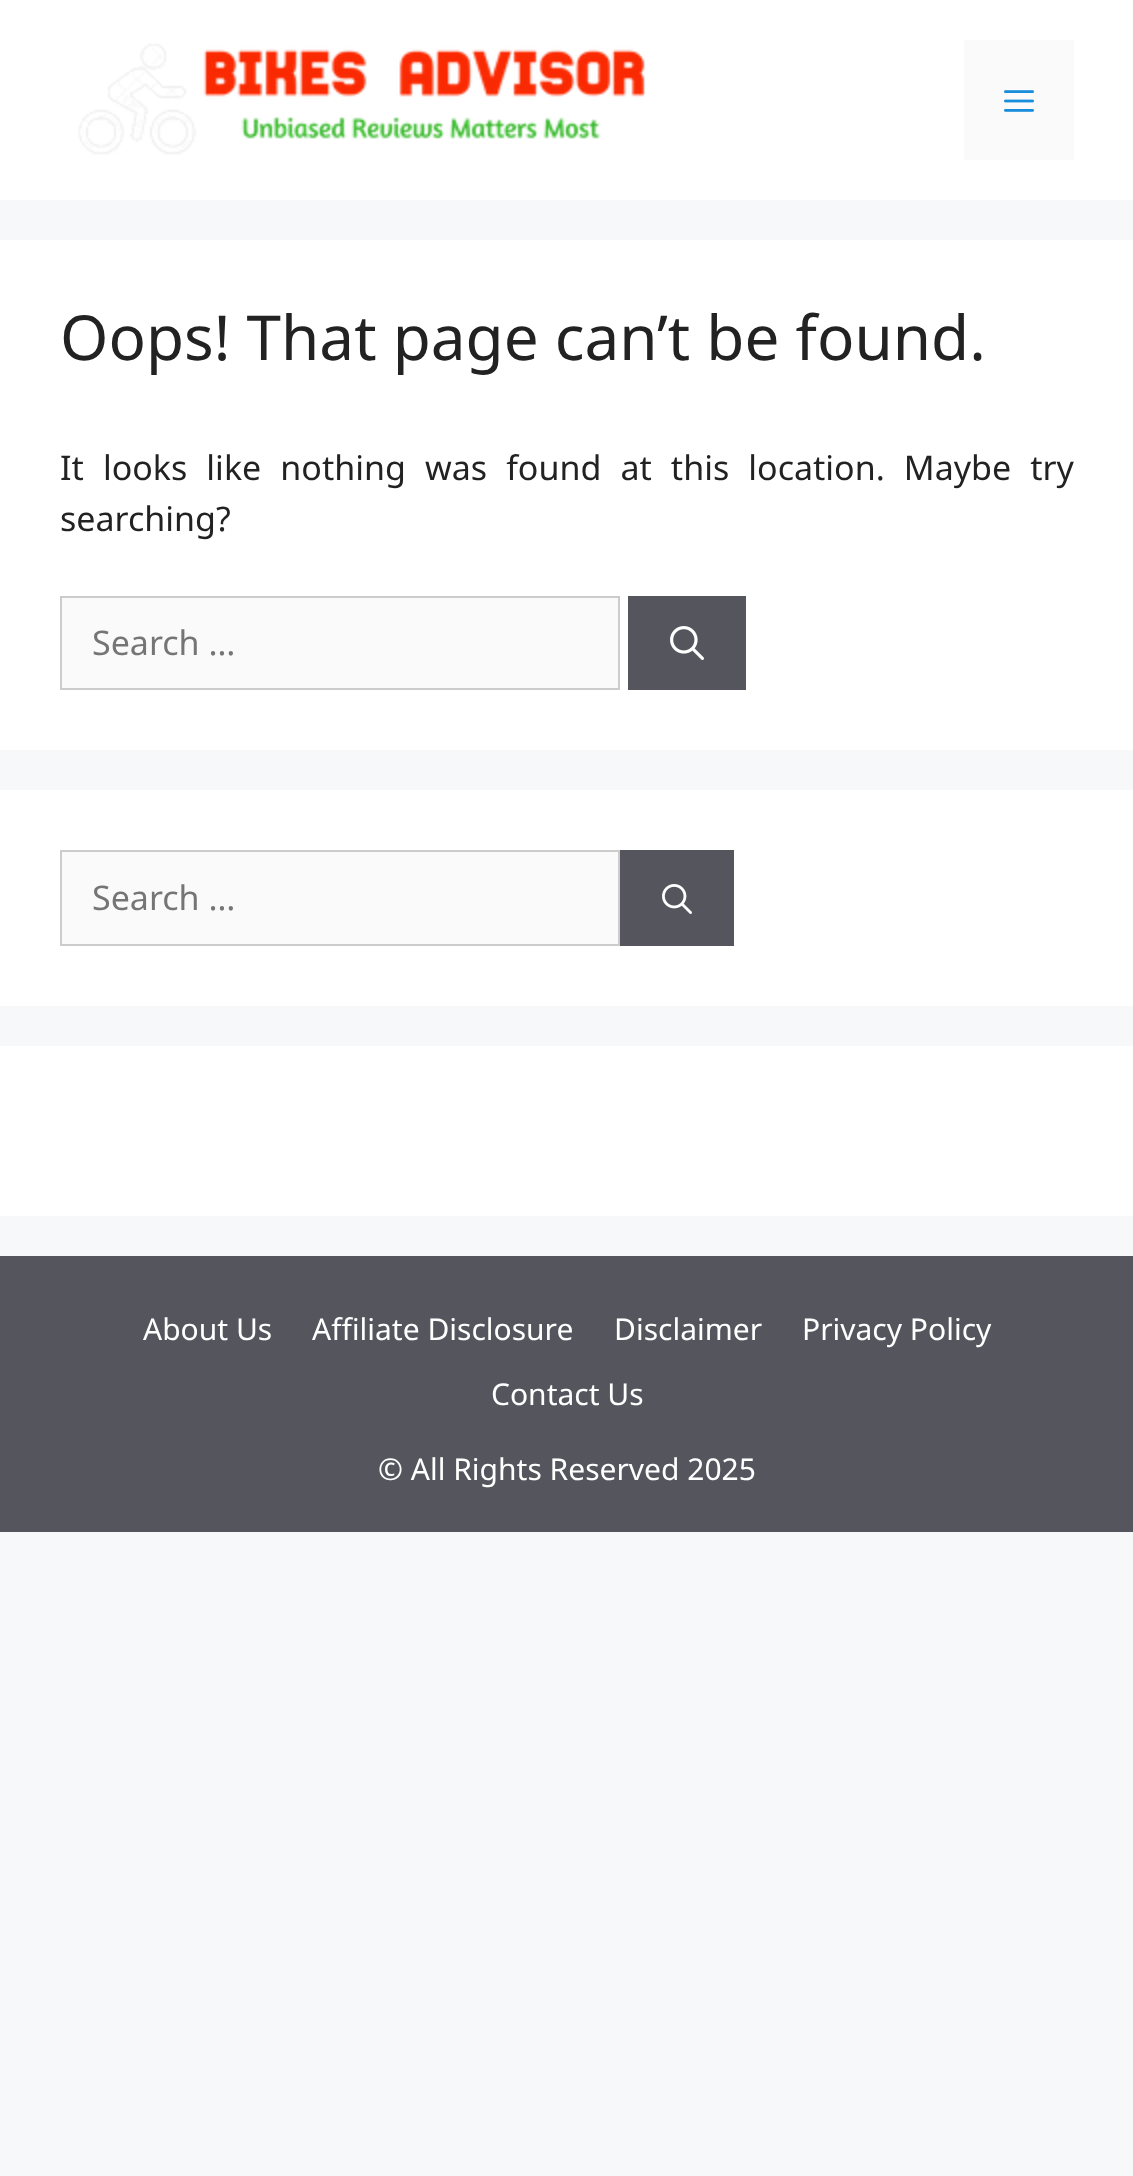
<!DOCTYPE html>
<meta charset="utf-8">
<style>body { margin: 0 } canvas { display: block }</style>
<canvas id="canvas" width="1133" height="2176"></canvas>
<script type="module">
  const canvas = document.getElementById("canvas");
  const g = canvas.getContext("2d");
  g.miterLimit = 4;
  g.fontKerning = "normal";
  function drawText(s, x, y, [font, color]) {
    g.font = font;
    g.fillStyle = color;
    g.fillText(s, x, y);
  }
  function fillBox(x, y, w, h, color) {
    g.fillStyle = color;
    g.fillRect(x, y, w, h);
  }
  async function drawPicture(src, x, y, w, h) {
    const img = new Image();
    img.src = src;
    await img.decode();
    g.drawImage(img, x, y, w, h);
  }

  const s1 = ["62px Noto Sans", "#222222"];
  const s2 = ["34px Noto Sans", "#222222"];
  const s3 = ["34px Noto Sans", "#757575"];
  const s4 = ["30px Noto Sans", "#FFFFFF"];

  fillBox(0, 0, 1133, 2176, "#F7F8F9");
  fillBox(0, 0, 1133, 200, "#FFFFFF");
  await drawPicture("pic1.png", 78, 43, 567, 112);
  fillBox(964, 40, 110, 120, "#FAFAFA");
  await drawPicture("pic2.png", 1004, 90, 30, 22);
  fillBox(0, 240, 1133, 510, "#FFFFFF");
  drawText("Oops! That page can’t be found.", 60, 360, s1);
  g.wordSpacing = "10.25px";
  drawText("It looks like nothing was found at this location. Maybe try", 60, 480, s2);
  g.wordSpacing = "0px";
  drawText("searching?", 60, 531, s2);
  g.fillStyle = "#FAFAFA";
  g.beginPath();
  g.rect(61, 597, 558, 92);
  g.fill();
  g.strokeStyle = "#CCCCCC";
  g.lineWidth = 2;
  g.stroke();
  drawText("Search …", 92, 655, s3);
  fillBox(628, 596, 118, 94, "#55555E");
  await drawPicture("pic3.png", 670, 626, 34, 34);
  fillBox(0, 790, 1133, 216, "#FFFFFF");
  g.fillStyle = "#FAFAFA";
  g.beginPath();
  g.rect(61, 851, 558, 94);
  g.fill();
  g.stroke();
  drawText("Search …", 92, 910, s3);
  fillBox(620, 850, 114, 96, "#55555E");
  await drawPicture("pic4.png", 662, 884, 30, 30);
  fillBox(0, 1046, 1133, 170, "#FFFFFF");
  fillBox(0, 1256, 1133, 276, "#55555E");
  drawText("About Us", 143, 1340, s4);
  drawText("Affiliate Disclosure", 312, 1340, s4);
  drawText("Disclaimer", 614, 1340, s4);
  drawText("Privacy Policy", 802, 1340, s4);
  drawText("Contact Us", 491, 1405, s4);
  drawText("© All Rights Reserved 2025", 378, 1480, s4);
</script>
